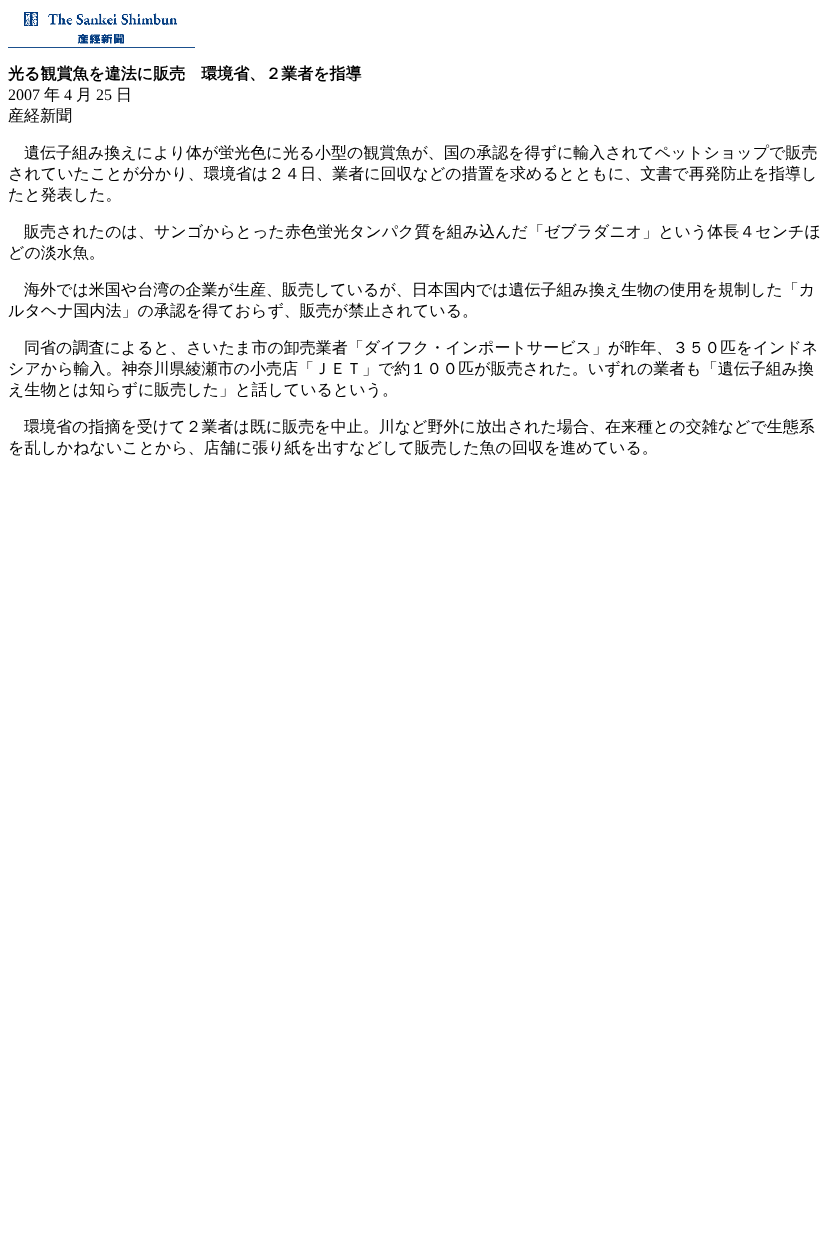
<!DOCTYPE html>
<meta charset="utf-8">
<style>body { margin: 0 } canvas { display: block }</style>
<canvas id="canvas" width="833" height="1251"></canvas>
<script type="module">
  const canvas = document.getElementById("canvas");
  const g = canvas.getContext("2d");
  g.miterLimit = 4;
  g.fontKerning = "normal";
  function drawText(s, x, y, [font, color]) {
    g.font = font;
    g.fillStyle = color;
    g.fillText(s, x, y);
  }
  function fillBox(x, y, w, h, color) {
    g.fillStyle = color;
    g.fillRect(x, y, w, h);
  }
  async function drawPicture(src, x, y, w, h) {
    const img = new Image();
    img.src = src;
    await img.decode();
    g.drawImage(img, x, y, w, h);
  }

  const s1 = ["bold 16px WenQuanYi Zen Hei", "#000000"];
  const s2 = ["16px Liberation Serif", "#000000"];
  const s3 = ["500 16px WenQuanYi Zen Hei", "#000000"];

  fillBox(0, 0, 833, 1251, "#FFFFFF");
  await drawPicture("pic1.png", 8, 12, 187, 36);
  drawText("光る観賞魚を違法に販売　環境省、２業者を指導", 8, 79, s1);
  drawText("2007", 8, 100, s2);
  drawText("年", 44, 100, s3);
  drawText("4", 64, 100, s2);
  drawText("月", 76, 100, s3);
  drawText("25", 96, 100, s2);
  drawText("日", 116, 100, s3);
  drawText("産経新聞", 8, 121, s3);
  drawText("遺伝子組み換えにより体が蛍光色に光る小型の観賞魚が、国の承認を得ずに輸入されてペットショップで販売", 24, 158, s3);
  drawText("されていたことが分かり、環境省は２４日、業者に回収などの措置を求めるとともに、文書で再発防止を指導し", 8, 179, s3);
  drawText("たと発表した。", 8, 200, s3);
  drawText("販売されたのは、サンゴからとった赤色蛍光タンパク質を組み込んだ「ゼブラダニオ」という体長４センチほ", 24, 237, s3);
  drawText("どの淡水魚。", 8, 258, s3);
  drawText("海外では米国や台湾の企業が生産、販売しているが、日本国内では遺伝子組み換え生物の使用を規制した「カ", 24, 295, s3);
  drawText("ルタヘナ国内法」の承認を得ておらず、販売が禁止されている。", 8, 316, s3);
  drawText("同省の調査によると、さいたま市の卸売業者「ダイフク・インポートサービス」が昨年、３５０匹をインドネ", 24, 353, s3);
  drawText("シアから輸入。神奈川県綾瀬市の小売店「ＪＥＴ」で約１００匹が販売された。いずれの業者も「遺伝子組み換", 8, 374, s3);
  drawText("え生物とは知らずに販売した」と話しているという。", 8, 395, s3);
  drawText("環境省の指摘を受けて２業者は既に販売を中止。川など野外に放出された場合、在来種との交雑などで生態系", 24, 432, s3);
  drawText("を乱しかねないことから、店舗に張り紙を出すなどして販売した魚の回収を進めている。", 8, 453, s3);
</script>
